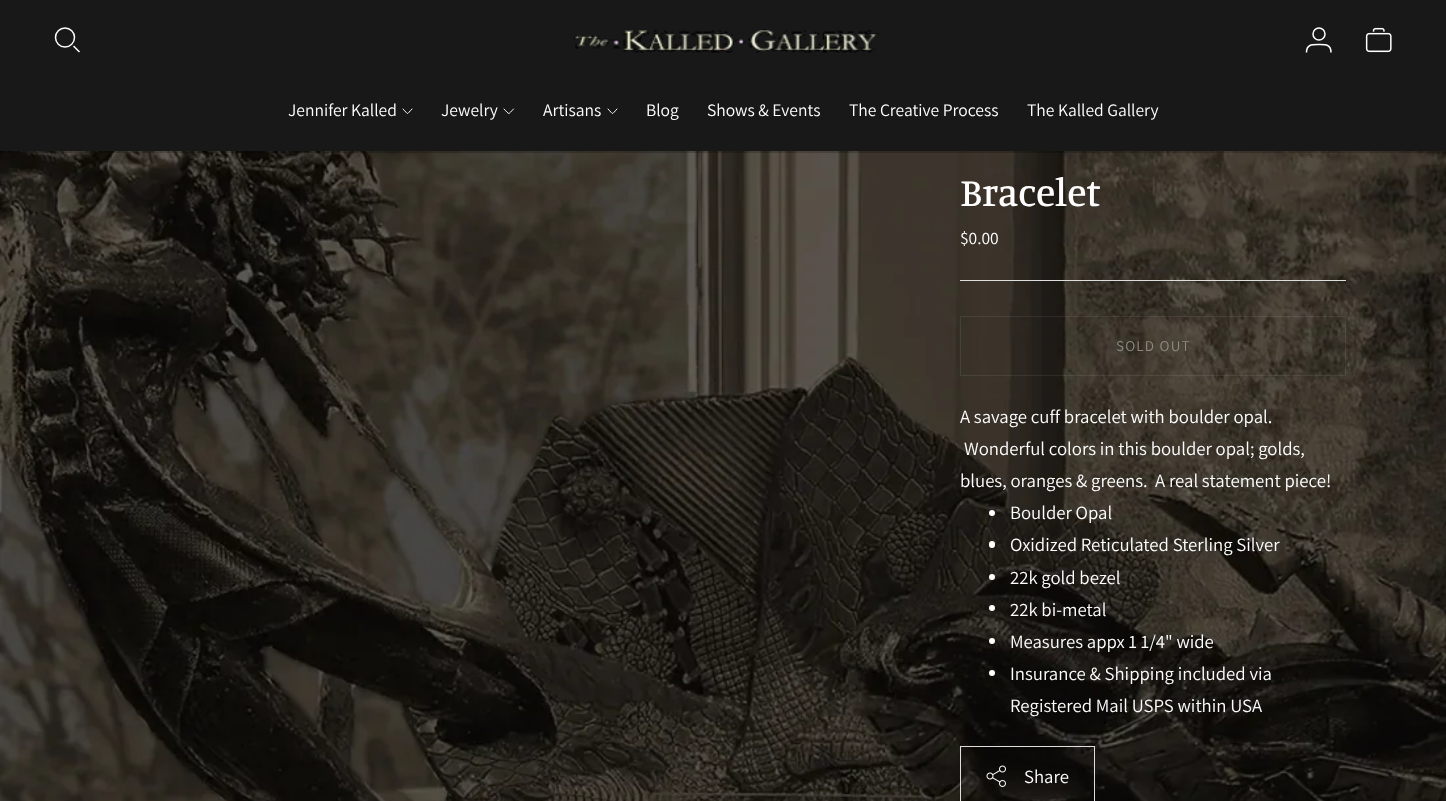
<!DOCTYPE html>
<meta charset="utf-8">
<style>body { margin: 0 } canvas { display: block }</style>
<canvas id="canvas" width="1446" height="801"></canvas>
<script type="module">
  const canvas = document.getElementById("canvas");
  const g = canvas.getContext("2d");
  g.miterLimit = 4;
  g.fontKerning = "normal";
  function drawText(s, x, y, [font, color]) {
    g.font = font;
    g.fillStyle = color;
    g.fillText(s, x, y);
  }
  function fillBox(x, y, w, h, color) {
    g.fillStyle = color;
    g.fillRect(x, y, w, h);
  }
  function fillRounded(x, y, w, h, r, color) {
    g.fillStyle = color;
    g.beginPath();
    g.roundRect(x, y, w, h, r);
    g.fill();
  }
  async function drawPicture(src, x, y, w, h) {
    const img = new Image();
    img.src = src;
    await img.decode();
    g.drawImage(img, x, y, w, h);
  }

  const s1 = ["17.5px Assistant", "#FFFFFF"];
  const s2 = ["500 40px Manuale", "#FFFFFF"];
  const s3 = ["15px Assistant", "#8E8A83"];
  const s4 = ["18.75px Assistant", "#FFFFFF"];

  fillBox(0, 0, 1446, 801, "#FFFFFF");
  await drawPicture("pic1.png", 0, 151, 1446, 650);
  g.fillStyle = "rgba(0, 0, 0, 0.2)";
  g.filter = "blur(0.5px)";
  g.beginPath();
  g.rect(0, 1, 1446, 152);
  g.fill();
  g.filter = "none";
  fillBox(0, 0, 1446, 151, "#181818");
  g.beginPath();
  g.arc(65, 37.5, 9.5, 0, Math.PI * 2);
  g.strokeStyle = "#FFFFFF";
  g.lineWidth = 1.5;
  g.stroke();
  g.beginPath();
  g.moveTo(73.5, 46);
  g.lineTo(79.5, 52);
  g.stroke();
  await drawPicture("pic2.png", 574, 29, 305, 24);
  g.beginPath();
  g.arc(1319, 34, 6, 0, Math.PI * 2);
  g.stroke();
  g.beginPath();
  g.moveTo(1306.5, 52.5);
  g.bezierCurveTo(1306.5, 44, 1312.5, 44.5, 1319, 44.5);
  g.bezierCurveTo(1325, 44.5, 1331, 44, 1331, 52.5);
  g.stroke();
  await drawPicture("pic3.png", 1365, 27, 27, 26);
  drawText("Jennifer Kalled", 288, 116, s1);
  g.beginPath();
  g.moveTo(403, 109);
  g.bezierCurveTo(409, 115, 406, 115, 412, 109);
  g.lineWidth = 1;
  g.lineCap = "round";
  g.lineJoin = "round";
  g.stroke();
  drawText("Jewelry", 441, 116, s1);
  g.beginPath();
  g.moveTo(504, 109);
  g.bezierCurveTo(510, 115, 507.5, 115, 513.5, 109);
  g.stroke();
  drawText("Artisans", 543, 116, s1);
  g.beginPath();
  g.moveTo(608, 109);
  g.bezierCurveTo(614, 115, 611, 115, 617, 109);
  g.stroke();
  drawText("Blog", 646, 116, s1);
  drawText("Shows & Events", 707, 116, s1);
  drawText("The Creative Process", 849, 116, s1);
  drawText("The Kalled Gallery", 1027, 116, s1);
  drawText("Bracelet", 960, 206, s2);
  drawText("$0.00", 960, 244, s1);
  fillBox(960, 280, 386, 1, "#DEDEDE");
  g.strokeStyle = "rgba(255, 255, 255, 0.08)";
  g.lineJoin = "miter";
  g.strokeRect(960.5, 316.5, 385, 59);
  g.letterSpacing = "1.25px";
  drawText("SOLD OUT", 1116, 351, s3);
  g.letterSpacing = "0px";
  drawText("A savage cuff bracelet with boulder opal.", 960, 423, s4);
  drawText("Wonderful colors in this boulder opal; golds,", 964, 455, s4);
  drawText("blues, oranges & greens.  A real statement piece!", 960, 487, s4);
  g.beginPath();
  g.arc(992, 513, 3, 0, Math.PI * 2);
  g.fill();
  drawText("Boulder Opal", 1010, 519, s4);
  fillRounded(989, 541, 6, 7, 3, "#FFFFFF");
  drawText("Oxidized Reticulated Sterling Silver", 1010, 551, s4);
  g.beginPath();
  g.arc(992, 577, 3, 0, Math.PI * 2);
  g.fill();
  drawText("22k gold bezel", 1010, 584, s4);
  g.beginPath();
  g.arc(992, 608, 3, 0, Math.PI * 2);
  g.fill();
  drawText("22k bi-metal", 1010, 616, s4);
  g.beginPath();
  g.arc(992, 641, 3, 0, Math.PI * 2);
  g.fill();
  drawText("Measures appx 1 1/4\" wide", 1010, 648, s4);
  g.beginPath();
  g.arc(992, 673, 3, 0, Math.PI * 2);
  g.fill();
  drawText("Insurance & Shipping included via", 1010, 680, s4);
  drawText("Registered Mail USPS within USA", 1010, 712, s4);
  g.strokeStyle = "#DEDEDE";
  g.strokeRect(960.5, 746.5, 134, 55);
  await drawPicture("pic4.png", 986, 765, 20, 22);
  drawText("Share", 1024, 783, s4);
</script>
